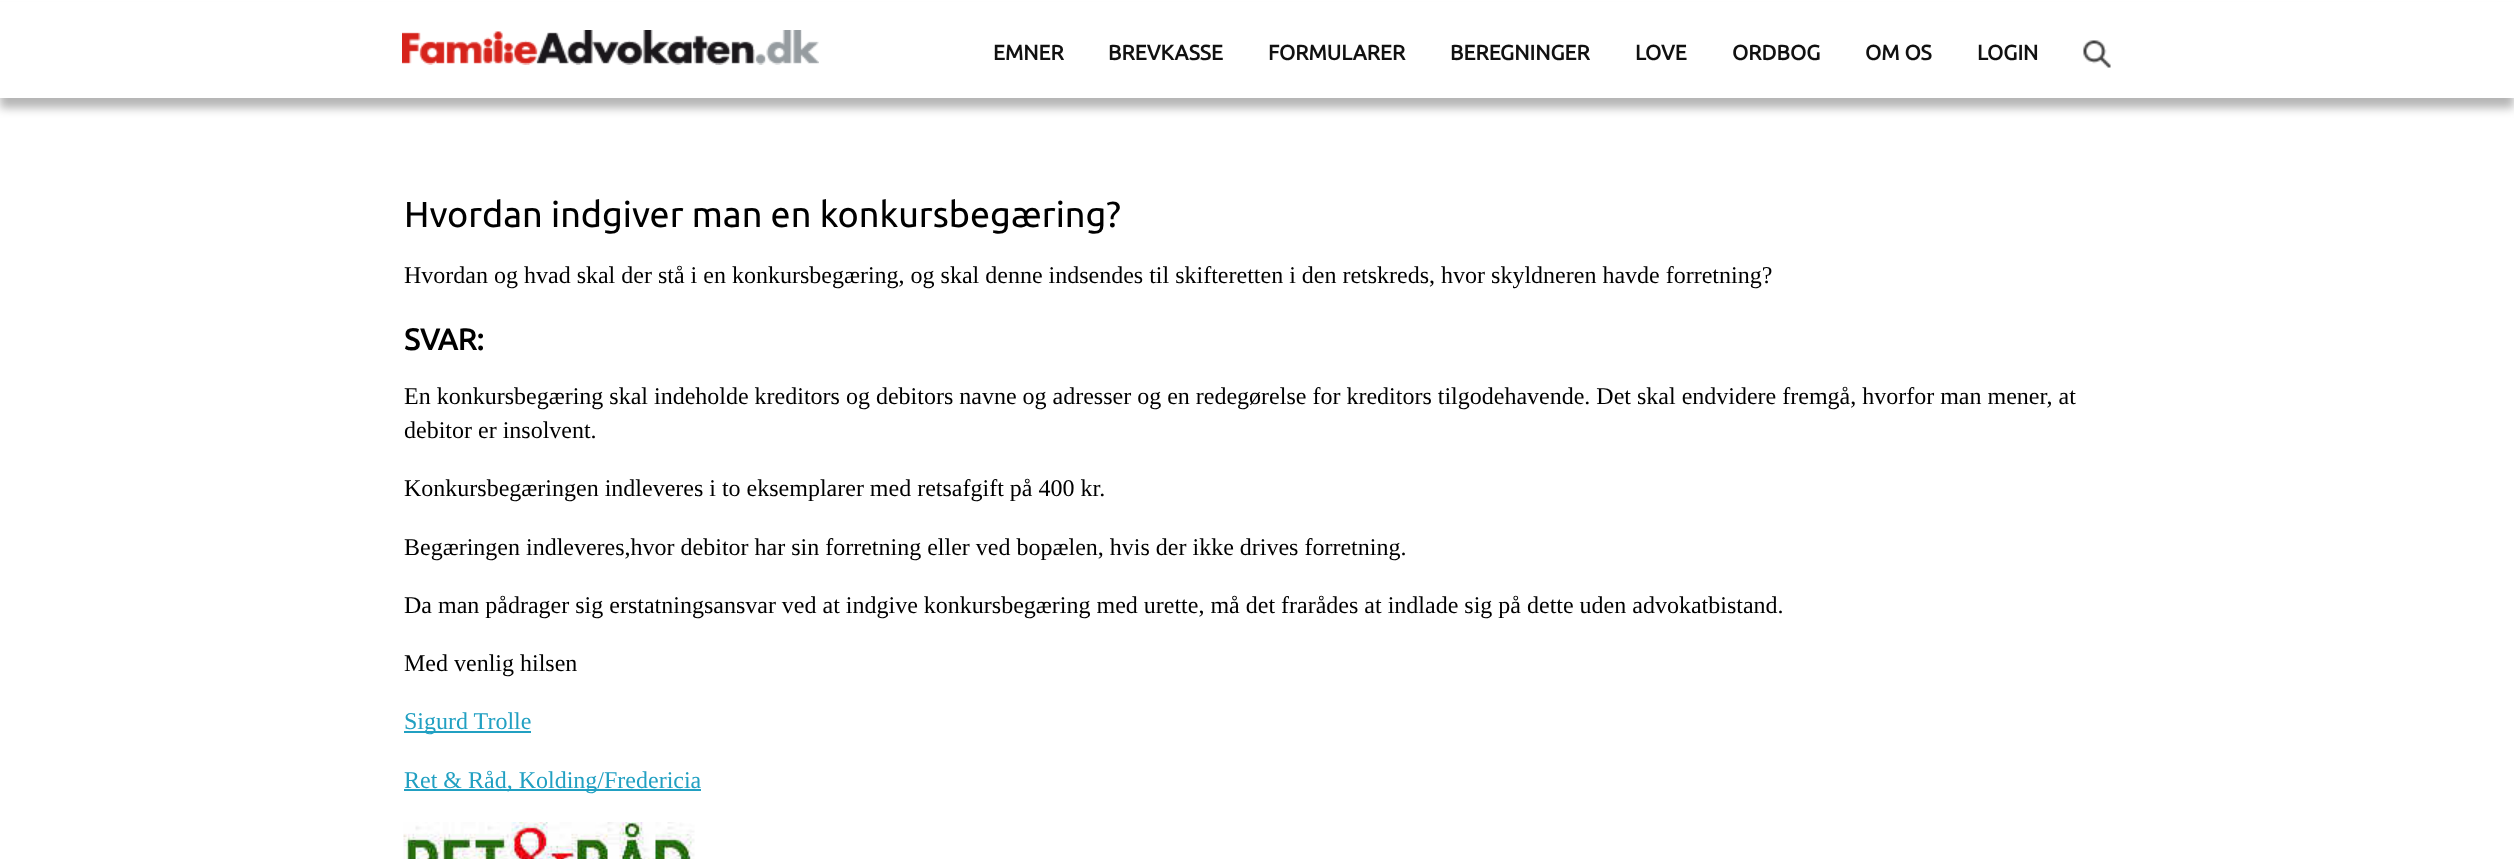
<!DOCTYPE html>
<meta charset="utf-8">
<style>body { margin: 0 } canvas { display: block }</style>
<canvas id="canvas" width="2514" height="859"></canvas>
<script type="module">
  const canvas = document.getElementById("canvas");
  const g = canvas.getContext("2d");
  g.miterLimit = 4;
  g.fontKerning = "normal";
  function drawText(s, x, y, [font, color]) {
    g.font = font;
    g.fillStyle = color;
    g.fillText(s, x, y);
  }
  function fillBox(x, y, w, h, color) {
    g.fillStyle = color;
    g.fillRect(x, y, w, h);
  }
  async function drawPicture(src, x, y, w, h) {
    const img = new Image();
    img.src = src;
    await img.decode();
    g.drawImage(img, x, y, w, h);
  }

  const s1 = ["bold 21px Ubuntu", "#111111"];
  const s2 = ["36px Ubuntu", "#000000"];
  const s3 = ["24px Liberation Serif", "#000000"];
  const s4 = ["bold 30px Ubuntu", "#000000"];
  const s5 = ["24px Liberation Serif", "#21A0C2"];

  fillBox(0, 0, 2514, 859, "#FFFFFF");
  g.fillStyle = "rgba(0, 0, 0, 0.29)";
  g.filter = "blur(5px)";
  g.beginPath();
  g.rect(0, 11, 2514, 97);
  g.fill();
  g.filter = "none";
  fillBox(0, 2, 2514, 96, "#FFFFFF");
  await drawPicture("pic1.png", 402, 30, 417, 35);
  drawText("EMNER", 993, 60, s1);
  drawText("BREVKASSE", 1108, 60, s1);
  drawText("FORMULARER", 1268, 60, s1);
  drawText("BEREGNINGER", 1450, 60, s1);
  drawText("LOVE", 1635, 60, s1);
  drawText("ORDBOG", 1732, 60, s1);
  drawText("OM OS", 1865, 60, s1);
  drawText("LOGIN", 1977, 60, s1);
  await drawPicture("pic2.png", 2083, 40, 28, 28);
  drawText("Hvordan indgiver man en konkursbegæring?", 404, 227, s2);
  drawText("Hvordan og hvad skal der stå i en konkursbegæring, og skal denne indsendes til skifteretten i den retskreds, hvor skyldneren havde forretning?", 404, 283, s3);
  drawText("SVAR:", 404, 350, s4);
  drawText("En konkursbegæring skal indeholde kreditors og debitors navne og adresser og en redegørelse for kreditors tilgodehavende. Det skal endvidere fremgå, hvorfor man mener, at", 404, 404, s3);
  drawText("debitor er insolvent.", 404, 438, s3);
  drawText("Konkursbegæringen indleveres i to eksemplarer med retsafgift på 400 kr.", 404, 496, s3);
  drawText("Begæringen indleveres,hvor debitor har sin forretning eller ved bopælen, hvis der ikke drives forretning.", 404, 555, s3);
  drawText("Da man pådrager sig erstatningsansvar ved at indgive konkursbegæring med urette, må det frarådes at indlade sig på dette uden advokatbistand.", 404, 613, s3);
  drawText("Med venlig hilsen", 404, 671, s3);
  fillBox(404, 731, 127, 2, "#21A0C2");
  drawText("Sigurd Trolle", 404, 729, s5);
  fillBox(404, 789, 297, 2, "#21A0C2");
  drawText("Ret & Råd, Kolding/Fredericia", 404, 788, s5);
  await drawPicture("pic3.png", 403, 822, 292, 37);
</script>
